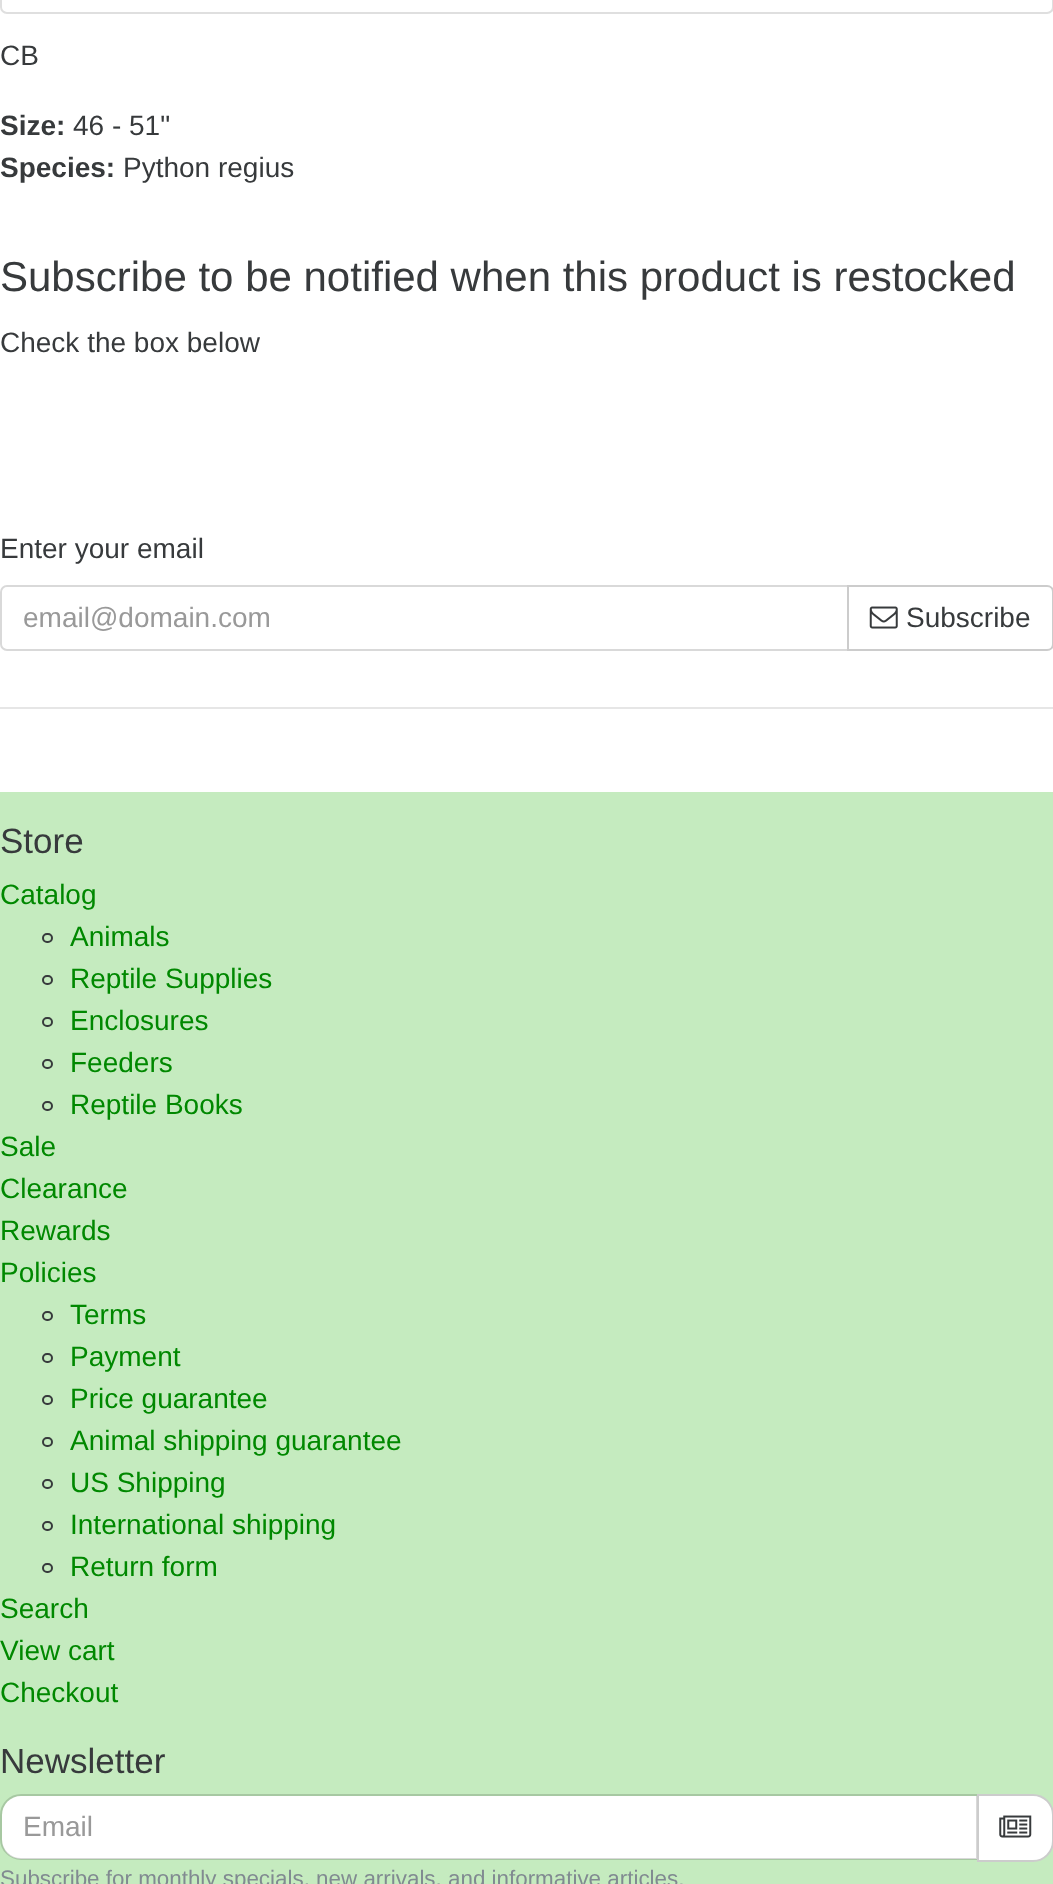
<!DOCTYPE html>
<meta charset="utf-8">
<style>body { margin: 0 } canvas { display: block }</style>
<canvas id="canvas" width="1053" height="1884"></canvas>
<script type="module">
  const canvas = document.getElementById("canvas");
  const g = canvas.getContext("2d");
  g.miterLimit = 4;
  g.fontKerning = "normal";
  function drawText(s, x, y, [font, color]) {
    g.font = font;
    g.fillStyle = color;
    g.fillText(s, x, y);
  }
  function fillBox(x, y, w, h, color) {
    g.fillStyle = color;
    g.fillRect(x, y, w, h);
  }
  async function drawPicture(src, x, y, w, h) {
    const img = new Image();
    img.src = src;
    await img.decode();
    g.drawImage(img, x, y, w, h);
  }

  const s1 = ["28px Liberation Sans", "#373A3C"];
  const s2 = ["bold 28px Liberation Sans", "#373A3C"];
  const s3 = ["42px Liberation Sans", "#373A3C"];
  const s4 = ["28px Liberation Sans", "#999999"];
  const s5 = ["35px Liberation Sans", "#373A3C"];
  const s6 = ["28px Liberation Sans", "#008800"];
  const s7 = ["22.4px Liberation Sans", "#818A91"];

  fillBox(0, 0, 1053, 1884, "#FFFFFF");
  g.beginPath();
  g.roundRect(1, -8, 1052, 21, 6);
  g.strokeStyle = "#DFDFDF";
  g.lineWidth = 2;
  g.stroke();
  drawText("CB", 0, 65, s1);
  drawText("Size:", 0, 135, s2);
  drawText("46 - 51\"", 73, 135, s1);
  drawText("Species:", 0, 177, s2);
  drawText("Python regius", 123, 177, s1);
  drawText("Subscribe to be notified when this product is restocked", 0, 291, s3);
  drawText("Check the box below", 0, 352, s1);
  drawText("Enter your email", 0, 558, s1);
  g.beginPath();
  g.roundRect(1, 586, 847, 64, [6, 0, 0, 6]);
  g.strokeStyle = "#D9D9D9";
  g.stroke();
  drawText("email@domain.com", 23, 627, s4);
  g.fillStyle = "#FFFFFF";
  g.beginPath();
  g.moveTo(848, 586);
  g.lineTo(1047, 586);
  g.bezierCurveTo(1050.5, 586, 1053, 588.5, 1053, 592);
  g.lineTo(1053, 644);
  g.bezierCurveTo(1053, 647.5, 1050.5, 650, 1047, 650);
  g.lineTo(848, 650);
  g.closePath();
  g.fill();
  g.strokeStyle = "#CCCCCC";
  g.stroke();
  await drawPicture("pic1.png", 869, 606, 29, 23);
  drawText("Subscribe", 906, 627, s1);
  fillBox(0, 707, 1053, 2, "#E6E6E6");
  fillBox(0, 792, 1053, 1092, "#C5EBBF");
  drawText("Store", 0, 853, s5);
  drawText("Catalog", 0, 904, s6);
  g.beginPath();
  g.roundRect(43, 934, 9, 8, 4);
  g.strokeStyle = "#373A3C";
  g.stroke();
  drawText("Animals", 70, 946, s6);
  g.beginPath();
  g.roundRect(43, 976, 9, 8, 4);
  g.stroke();
  drawText("Reptile Supplies", 70, 988, s6);
  g.beginPath();
  g.roundRect(43, 1018, 9, 8, 4);
  g.stroke();
  drawText("Enclosures", 70, 1030, s6);
  g.beginPath();
  g.roundRect(43, 1060, 9, 8, 4);
  g.stroke();
  drawText("Feeders", 70, 1072, s6);
  g.beginPath();
  g.roundRect(43, 1102, 9, 8, 4);
  g.stroke();
  drawText("Reptile Books", 70, 1114, s6);
  drawText("Sale", 0, 1156, s6);
  drawText("Clearance", 0, 1198, s6);
  drawText("Rewards", 0, 1240, s6);
  drawText("Policies", 0, 1282, s6);
  g.beginPath();
  g.roundRect(43, 1312, 9, 8, 4);
  g.stroke();
  drawText("Terms", 70, 1324, s6);
  g.beginPath();
  g.roundRect(43, 1354, 9, 8, 4);
  g.stroke();
  drawText("Payment", 70, 1366, s6);
  g.beginPath();
  g.roundRect(43, 1396, 9, 8, 4);
  g.stroke();
  drawText("Price guarantee", 70, 1408, s6);
  g.beginPath();
  g.roundRect(43, 1438, 9, 8, 4);
  g.stroke();
  drawText("Animal shipping guarantee", 70, 1450, s6);
  g.beginPath();
  g.roundRect(43, 1480, 9, 8, 4);
  g.stroke();
  drawText("US Shipping", 70, 1492, s6);
  g.beginPath();
  g.roundRect(43, 1522, 9, 8, 4);
  g.stroke();
  drawText("International shipping", 70, 1534, s6);
  g.beginPath();
  g.roundRect(43, 1564, 9, 8, 4);
  g.stroke();
  drawText("Return form", 70, 1576, s6);
  drawText("Search", 0, 1618, s6);
  drawText("View cart", 0, 1660, s6);
  drawText("Checkout", 0, 1702, s6);
  drawText("Newsletter", 0, 1773, s5);
  g.fillStyle = "#FFFFFF";
  g.beginPath();
  g.roundRect(2, 1796, 975, 63, [19, 0, 0, 19]);
  g.fill();
  g.beginPath();
  g.roundRect(1, 1795, 976, 64, [20, 0, 0, 20]);
  g.strokeStyle = "rgba(0, 0, 0, 0.15)";
  g.stroke();
  drawText("Email", 23, 1836, s4);
  g.fillStyle = "#FFFFFF";
  g.beginPath();
  g.moveTo(978, 1795);
  g.lineTo(1033, 1795);
  g.bezierCurveTo(1044, 1795, 1053, 1804, 1053, 1815);
  g.lineTo(1053, 1841);
  g.bezierCurveTo(1053, 1852, 1044, 1861, 1033, 1861);
  g.lineTo(978, 1861);
  g.closePath();
  g.fill();
  g.strokeStyle = "#CCCCCC";
  g.stroke();
  await drawPicture("pic2.png", 999, 1815, 33, 23);
  drawText("Subscribe for monthly specials, new arrivals, and informative articles.", 0, 1886, s7);
</script>
